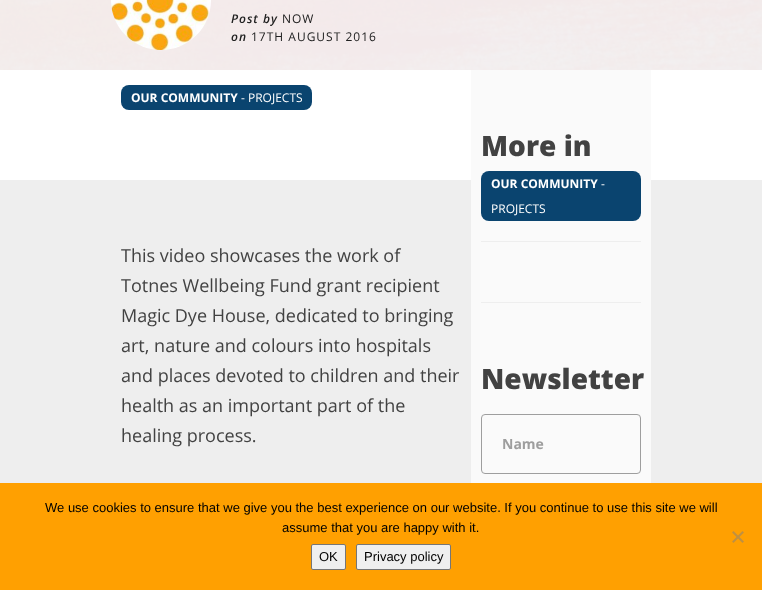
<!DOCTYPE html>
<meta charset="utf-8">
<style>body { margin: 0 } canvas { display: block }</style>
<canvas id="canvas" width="762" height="590"></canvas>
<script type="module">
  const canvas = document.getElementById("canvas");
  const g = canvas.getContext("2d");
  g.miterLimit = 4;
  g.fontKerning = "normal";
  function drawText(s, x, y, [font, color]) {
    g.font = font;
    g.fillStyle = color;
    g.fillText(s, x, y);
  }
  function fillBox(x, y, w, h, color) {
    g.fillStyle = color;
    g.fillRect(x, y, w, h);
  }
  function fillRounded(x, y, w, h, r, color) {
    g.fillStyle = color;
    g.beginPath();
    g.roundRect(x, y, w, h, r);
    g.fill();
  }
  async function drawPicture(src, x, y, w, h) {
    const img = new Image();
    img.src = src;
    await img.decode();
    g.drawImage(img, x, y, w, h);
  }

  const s1 = ["italic 600 12px Open Sans", "#212121"];
  const s2 = ["12px Open Sans", "#212121"];
  const s3 = ["bold 12px Open Sans", "#FFFFFF"];
  const s4 = ["12px Open Sans", "#FFFFFF"];
  const s5 = ["18px Open Sans", "#424242"];
  const s6 = ["800 28px Open Sans", "#424242"];
  const s7 = ["bold 14px Open Sans", "#9E9E9E"];
  const s8 = ["13px Liberation Sans", "#000000"];

  fillBox(0, 0, 762, 590, "#EEEEEE");
  await drawPicture("pic1.png", 0, 0, 762, 70);
  await drawPicture("pic2.png", 111, 0, 100, 50);
  g.letterSpacing = "1px";
  drawText("Post by", 231, 23, s1);
  drawText("NOW", 282, 23, s2);
  drawText("on", 231, 41, s1);
  drawText("17TH AUGUST 2016", 251, 41, s2);
  fillBox(0, 70, 762, 110, "#FFFFFF");
  fillRounded(121, 85, 191, 25, 8, "#0A446F");
  g.letterSpacing = "0px";
  drawText("OUR COMMUNITY", 131, 102, s3);
  drawText("- PROJECTS", 241, 102, s4);
  drawText("This video showcases the work of", 121, 262, s5);
  drawText("Totnes Wellbeing Fund grant recipient", 121, 292, s5);
  drawText("Magic Dye House, dedicated to bringing", 121, 322, s5);
  drawText("art, nature and colours into hospitals", 121, 352, s5);
  drawText("and places devoted to children and their", 121, 382, s5);
  drawText("health as an important part of the", 121, 412, s5);
  drawText("healing process.", 121, 442, s5);
  fillBox(471, 70, 180, 413, "#FAFAFA");
  fillBox(481, 302, 160, 1, "#EEEEEE");
  drawText("More in", 481, 156, s6);
  fillRounded(481, 171, 160, 50, 8, "#0A446F");
  drawText("OUR COMMUNITY", 491, 188, s3);
  drawText("-", 601, 188, s4);
  drawText("PROJECTS", 491, 213, s4);
  fillBox(481, 241, 160, 1, "#EEEEEE");
  drawText("Newsletter", 481, 389, s6);
  g.beginPath();
  g.roundRect(481.5, 414.5, 159, 59, 3.5);
  g.strokeStyle = "#9E9E9E";
  g.stroke();
  drawText("Name", 502, 449, s7);
  fillBox(0, 483, 762, 107, "#FFA001");
  drawText("We use cookies to ensure that we give you the best experience on our website. If you continue to use this site we will", 45, 512, s8);
  drawText("assume that you are happy with it.", 282, 532, s8);
  g.fillStyle = "#C09041";
  g.beginPath();
  g.moveTo(742.5, 531);
  g.lineTo(744, 532.5);
  g.lineTo(733.5, 543);
  g.lineTo(732, 541.5);
  g.closePath();
  g.fill();
  g.beginPath();
  g.moveTo(732, 532.5);
  g.lineTo(733.5, 531);
  g.lineTo(744, 541.5);
  g.lineTo(742.5, 543);
  g.closePath();
  g.fill();
  g.fillStyle = "#EFEFEF";
  g.beginPath();
  g.roundRect(311.5, 544.5, 34, 25, 1.5);
  g.fill();
  g.strokeStyle = "#767676";
  g.stroke();
  drawText("OK", 319, 561, s8);
  g.fillStyle = "#EFEFEF";
  g.beginPath();
  g.roundRect(356.5, 544.5, 94, 25, 1.5);
  g.fill();
  g.stroke();
  drawText("Privacy policy", 364, 561, s8);
</script>
